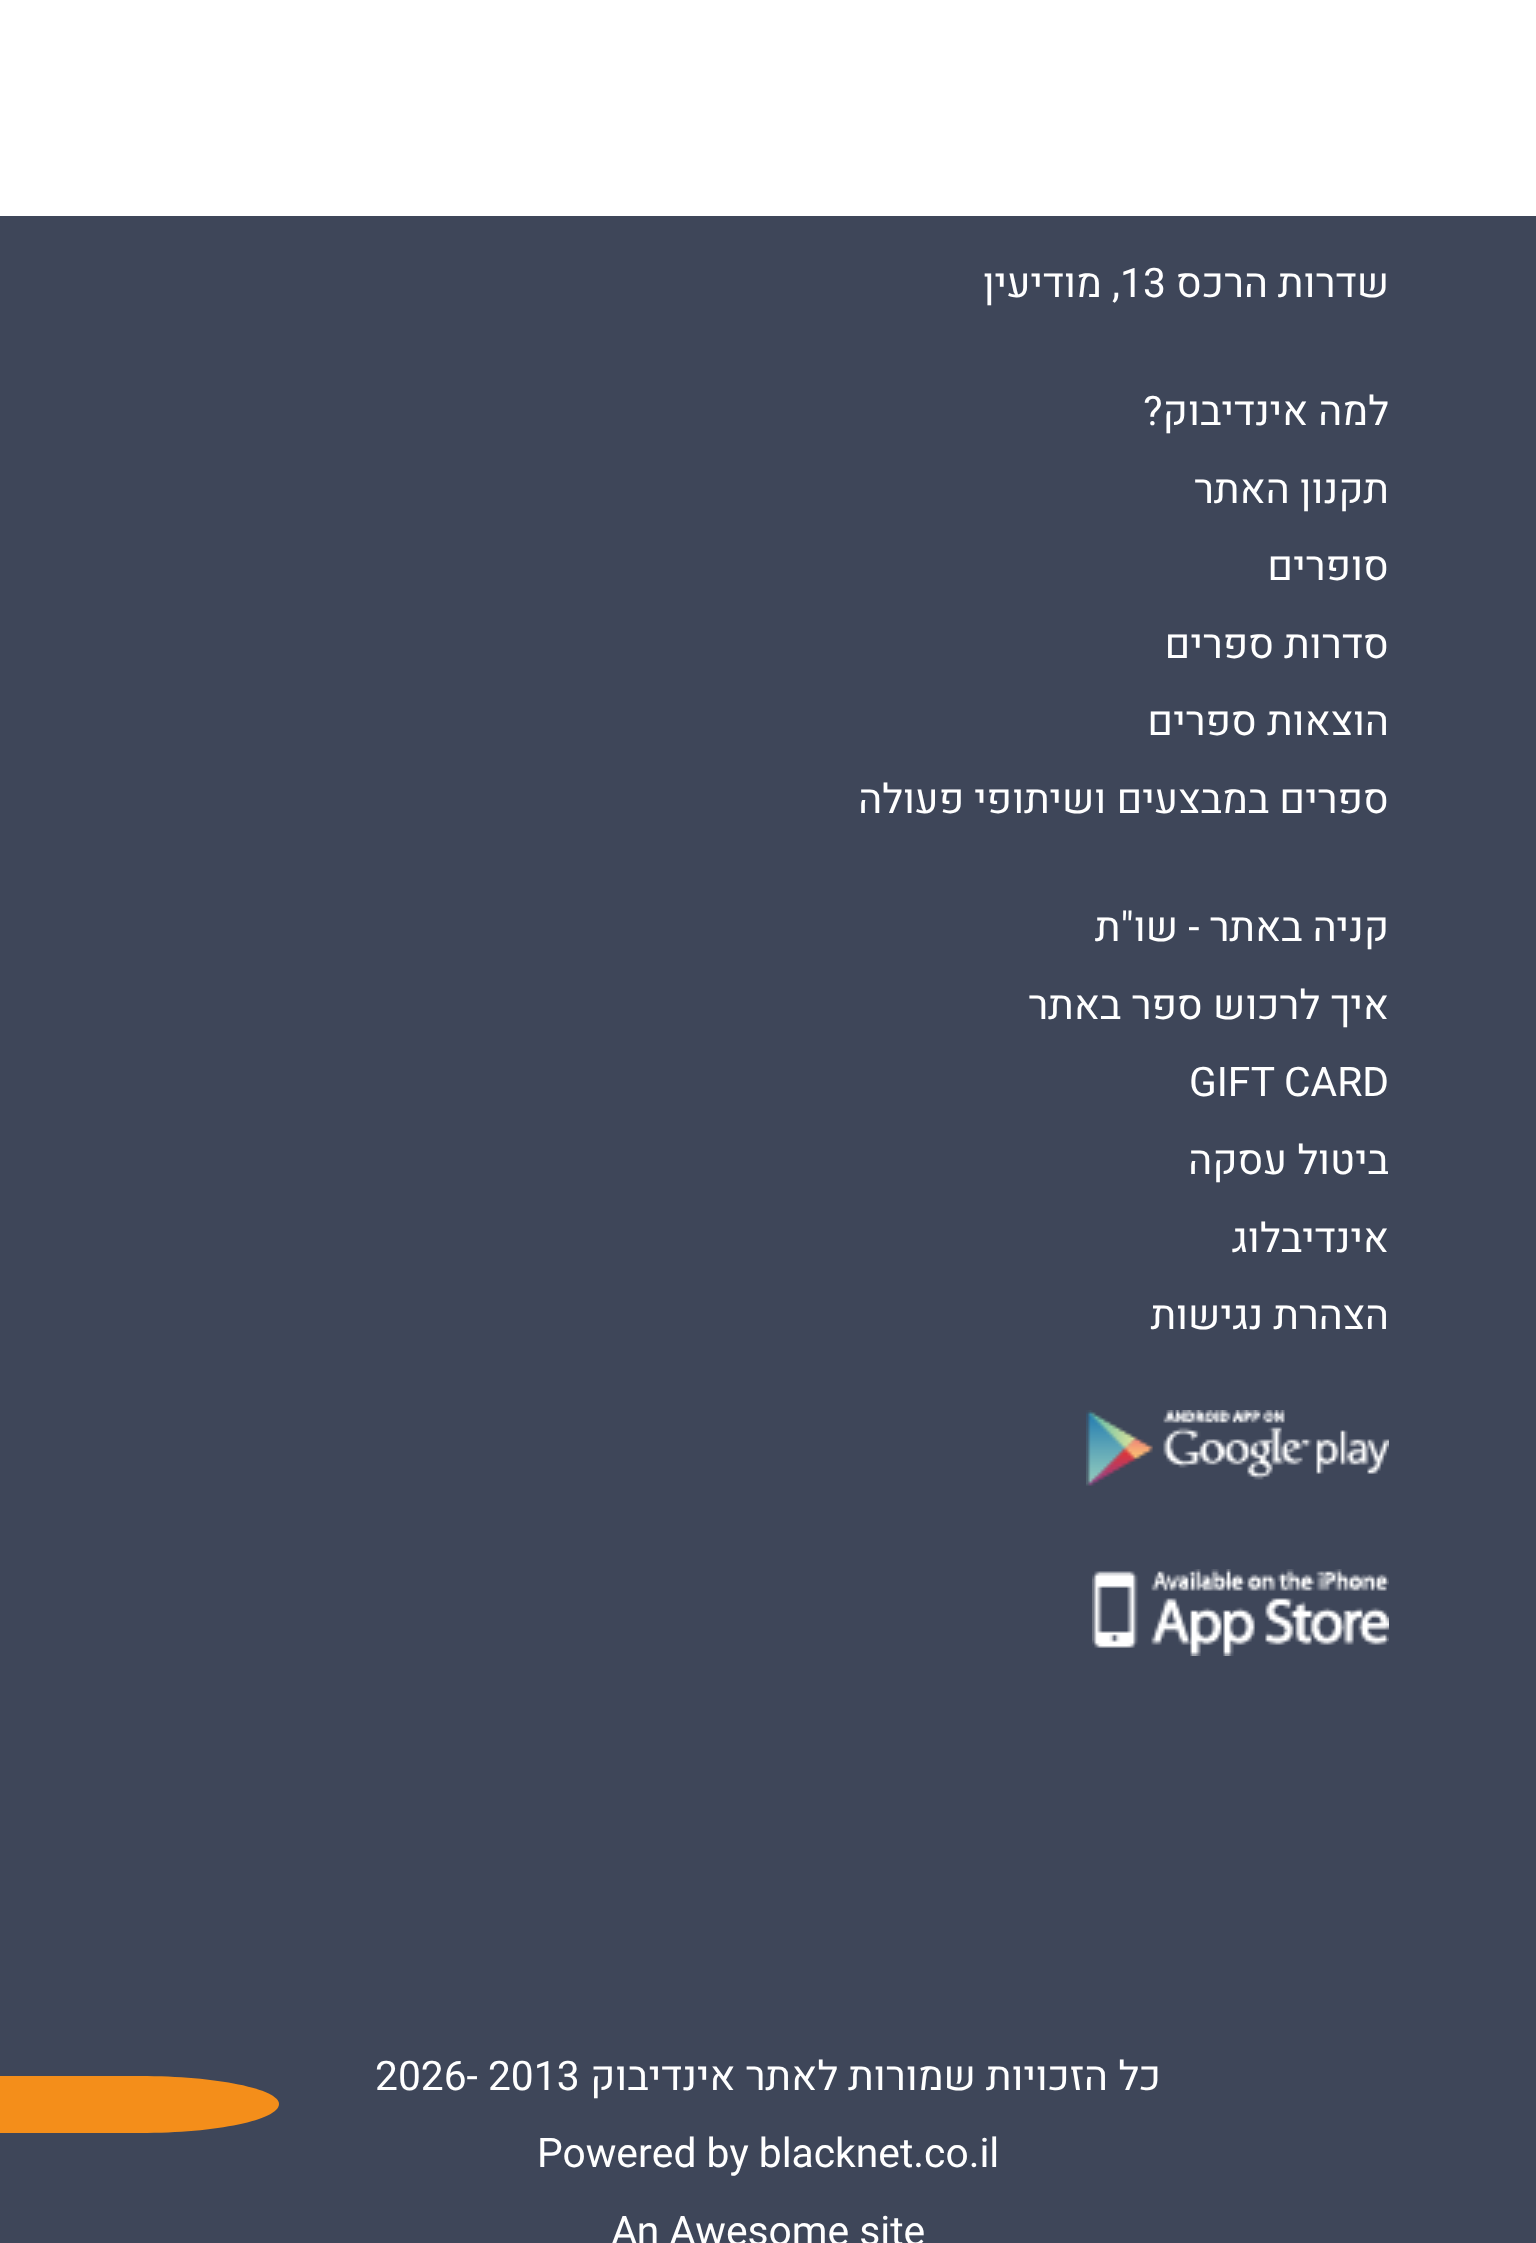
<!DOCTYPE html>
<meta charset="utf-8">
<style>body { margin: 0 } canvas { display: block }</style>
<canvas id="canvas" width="1536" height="2243"></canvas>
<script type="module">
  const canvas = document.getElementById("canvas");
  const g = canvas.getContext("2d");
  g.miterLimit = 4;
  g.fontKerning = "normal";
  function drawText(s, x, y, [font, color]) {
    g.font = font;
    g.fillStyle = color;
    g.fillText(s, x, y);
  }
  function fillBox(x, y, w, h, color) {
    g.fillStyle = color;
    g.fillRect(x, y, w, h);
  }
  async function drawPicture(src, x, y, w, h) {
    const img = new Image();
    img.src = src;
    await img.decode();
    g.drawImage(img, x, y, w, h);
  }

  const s1 = ["40.75px Heebo", "#FFFFFF"];

  fillBox(0, 0, 1536, 2243, "#3E4659");
  fillBox(0, 0, 1536, 216, "#FFFFFF");
  g.direction = "rtl";
  drawText("שדרות הרכס", 1389, 297, s1);
  g.direction = "ltr";
  drawText("13", 1120, 297, s1);
  g.direction = "rtl";
  drawText(", מודיעין", 1120, 297, s1);
  drawText("למה אינדיבוק?", 1389, 425, s1);
  drawText("תקנון האתר", 1389, 503, s1);
  drawText("סופרים", 1389, 580, s1);
  drawText("סדרות ספרים", 1389, 658, s1);
  drawText("הוצאות ספרים", 1389, 735, s1);
  drawText("ספרים במבצעים ושיתופי פעולה", 1389, 813, s1);
  drawText("קניה באתר - שו\"ת", 1389, 941, s1);
  drawText("איך לרכוש ספר באתר", 1389, 1019, s1);
  g.direction = "ltr";
  drawText("GIFT CARD", 1189, 1096, s1);
  g.direction = "rtl";
  drawText("ביטול עסקה", 1389, 1174, s1);
  drawText("אינדיבלוג", 1389, 1252, s1);
  drawText("הצהרת נגישות", 1389, 1329, s1);
  await drawPicture("pic1.png", 1086, 1410, 303, 76);
  await drawPicture("pic2.png", 1092, 1569, 297, 87);
  drawText("כל הזכויות שמורות לאתר אינדיבוק", 1161, 2090, s1);
  g.direction = "ltr";
  drawText("2026- 2013", 375, 2090, s1);
  drawText("Powered by blacknet.co.il", 537, 2167, s1);
  drawText("An Awesome site", 611, 2245, s1);
  g.fillStyle = "#F48E1A";
  g.beginPath();
  g.moveTo(0, 2076);
  g.lineTo(140, 2076);
  g.bezierCurveTo(217, 2076, 279, 2089, 279, 2104);
  g.bezierCurveTo(279, 2120, 217, 2133, 140, 2133);
  g.lineTo(0, 2133);
  g.closePath();
  g.fill();
</script>
